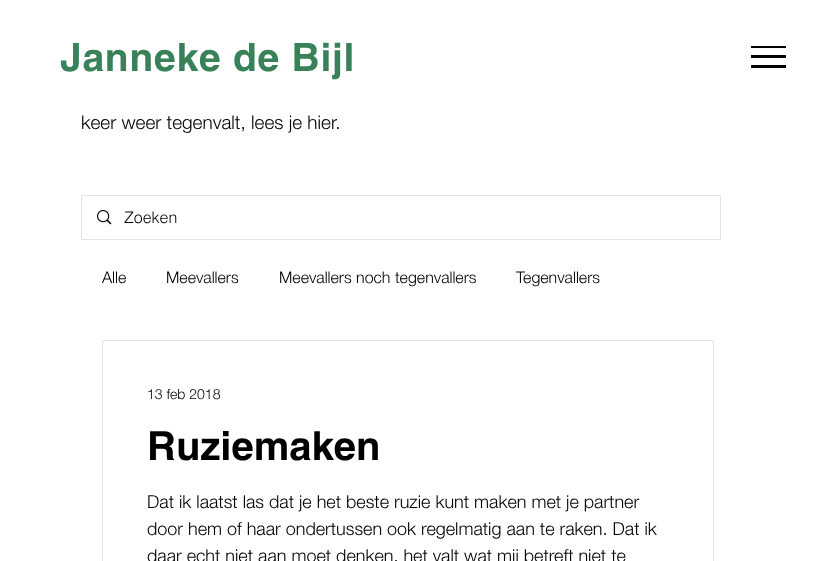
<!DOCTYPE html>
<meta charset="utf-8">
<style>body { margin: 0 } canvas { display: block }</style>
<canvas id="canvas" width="816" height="561"></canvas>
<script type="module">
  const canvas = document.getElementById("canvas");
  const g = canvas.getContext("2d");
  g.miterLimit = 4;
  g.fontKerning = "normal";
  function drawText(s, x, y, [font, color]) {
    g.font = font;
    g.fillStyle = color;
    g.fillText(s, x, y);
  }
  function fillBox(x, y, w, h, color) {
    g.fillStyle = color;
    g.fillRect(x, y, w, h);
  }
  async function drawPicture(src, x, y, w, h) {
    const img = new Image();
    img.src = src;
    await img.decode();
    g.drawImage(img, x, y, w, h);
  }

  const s1 = ["bold 39px helvetica", "#388159"];
  const s2 = ["300 19px Helvetica Neue", "#000000"];
  const s3 = ["300 16px helvetica", "#000000"];
  const s4 = ["300 16px Helvetica Neue", "#000000"];
  const s5 = ["300 14px Helvetica Neue", "#000000"];
  const s6 = ["bold 40px helvetica", "#000000"];
  const s7 = ["300 18px Helvetica Neue", "#000000"];

  fillBox(0, 0, 816, 561, "#FFFFFF");
  g.letterSpacing = "0.75px";
  drawText("Janneke de Bijl", 60, 71, s1);
  fillBox(751, 65, 35, 3, "#000000");
  fillBox(751, 46, 35, 2, "#000000");
  fillBox(751, 55, 35, 3, "#000000");
  g.letterSpacing = "0px";
  drawText("keer weer tegenvalt, lees je hier.", 81, 129, s2);
  g.strokeStyle = "#E3E3E3";
  g.strokeRect(81.5, 195.5, 639, 44);
  await drawPicture("pic1.png", 97, 210, 15, 15);
  drawText("Zoeken", 124, 223, s3);
  drawText("Alle", 102, 283, s4);
  drawText("Meevallers", 166, 283, s4);
  drawText("Meevallers noch tegenvallers", 279, 283, s4);
  drawText("Tegenvallers", 516, 283, s4);
  g.strokeRect(102.5, 340.5, 611, 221);
  drawText("13 feb 2018", 147, 399, s5);
  drawText("Ruziemaken", 147, 460, s6);
  drawText("Dat ik laatst las dat je het beste ruzie kunt maken met je partner", 147, 508, s7);
  drawText("door hem of haar ondertussen ook regelmatig aan te raken. Dat ik", 147, 535, s7);
  drawText("daar echt niet aan moet denken, het valt wat mij betreft niet te", 147, 562, s7);
</script>
